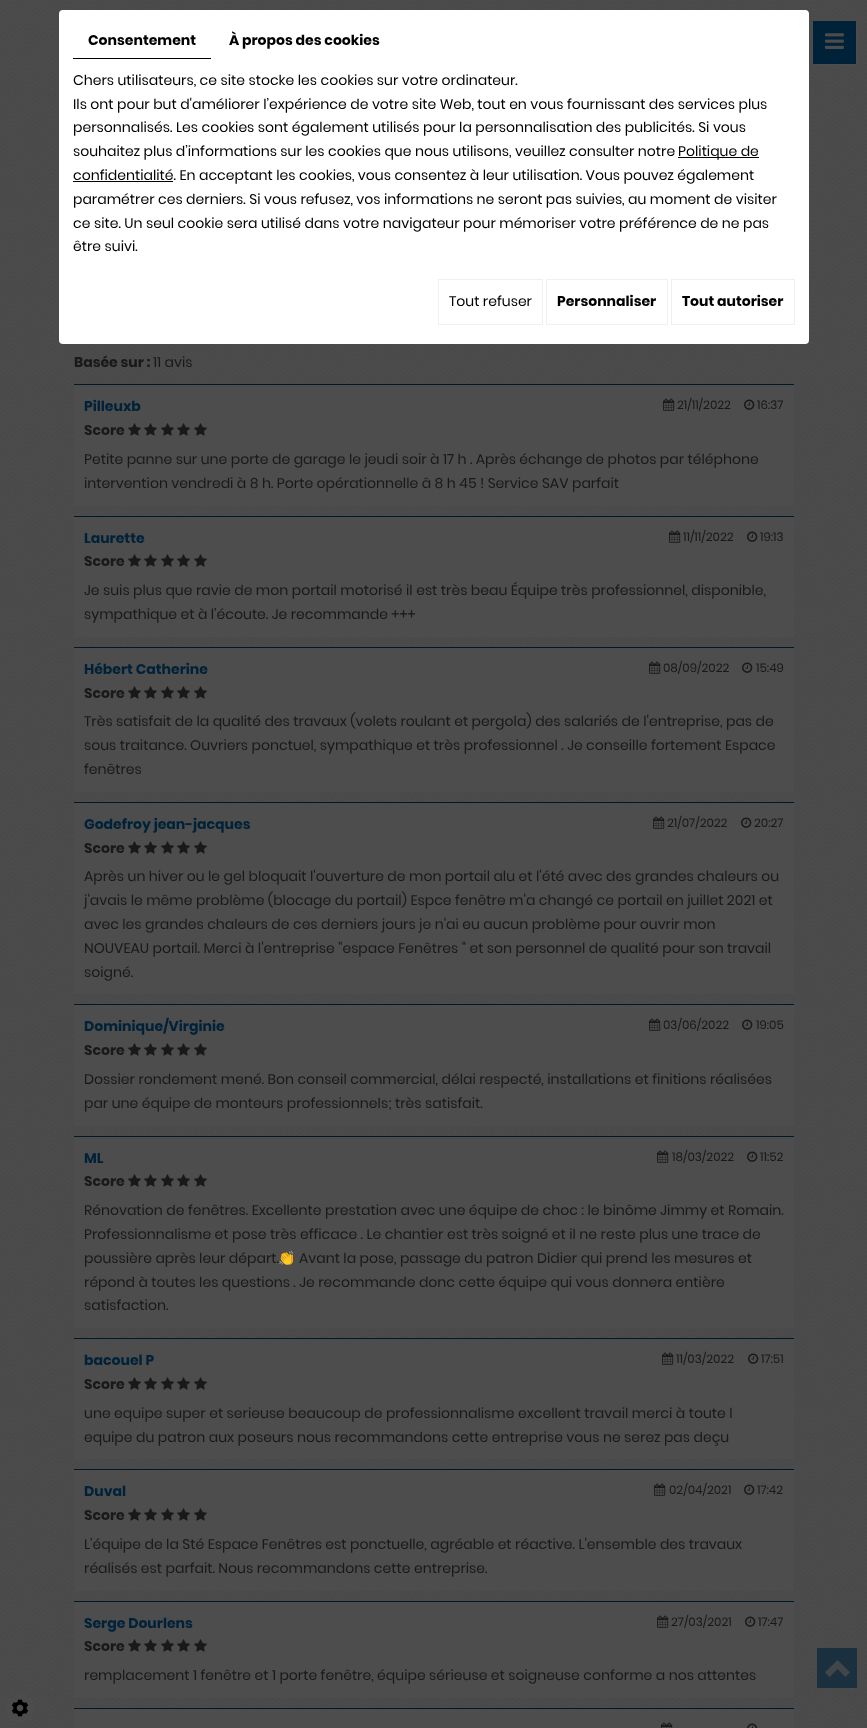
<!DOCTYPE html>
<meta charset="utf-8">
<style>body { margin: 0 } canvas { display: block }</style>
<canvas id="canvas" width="867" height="1728"></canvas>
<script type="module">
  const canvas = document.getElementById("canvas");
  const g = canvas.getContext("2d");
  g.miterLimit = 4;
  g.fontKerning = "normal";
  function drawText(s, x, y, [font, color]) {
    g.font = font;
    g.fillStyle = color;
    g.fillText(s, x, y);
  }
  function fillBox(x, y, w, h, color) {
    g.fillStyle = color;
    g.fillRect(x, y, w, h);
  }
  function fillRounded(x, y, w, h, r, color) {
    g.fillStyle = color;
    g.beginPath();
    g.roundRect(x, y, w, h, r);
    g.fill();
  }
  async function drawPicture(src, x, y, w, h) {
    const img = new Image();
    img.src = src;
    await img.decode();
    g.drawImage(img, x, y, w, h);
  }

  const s1 = ["bold 14px Poppins", "#000000"];
  const s2 = ["14px Poppins", "#000000"];
  const s3 = ["bold 14px Poppins", "#191919"];
  const s4 = ["14px Poppins", "#191919"];
  const s5 = ["bold 14px Poppins", "#002239"];
  const s6 = ["12px Poppins", "#191919"];
  const s7 = ["14px Noto Color Emoji", "#191919"];

  fillBox(0, 0, 867, 1728, "#FFFFFF");
  await drawPicture("pic1.png", 0, 0, 867, 1728);
  fillRounded(59, 10, 750, 334, 4, "#FFFFFF");
  fillBox(73, 58, 138, 1, "#000000");
  drawText("Consentement", 88, 45, s1);
  drawText("À propos des cookies", 229, 45, s1);
  drawText("Chers utilisateurs, ce site stocke les cookies sur votre ordinateur.", 73, 85, s2);
  drawText("Ils ont pour but d'améliorer l’expérience de votre site Web, tout en vous fournissant des services plus", 73, 109, s2);
  drawText("personnalisés. Les cookies sont également utilisés pour la personnalisation des publicités. Si vous", 73, 132, s2);
  drawText("souhaitez plus d’informations sur les cookies que nous utilisons, veuillez consulter notre", 73, 156, s2);
  fillBox(678, 157, 81, 1, "#000000");
  drawText("Politique de", 678, 156, s2);
  fillBox(73, 181, 100, 1, "#000000");
  drawText("confidentialité. En acceptant les cookies, vous consentez à leur utilisation. Vous pouvez également", 73, 180, s2);
  drawText("paramétrer ces derniers. Si vous refusez, vos informations ne seront pas suivies, au moment de visiter", 73, 204, s2);
  drawText("ce site. Un seul cookie sera utilisé dans votre navigateur pour mémoriser votre préférence de ne pas", 73, 228, s2);
  drawText("être suivi.", 73, 251, s2);
  g.strokeStyle = "#F0F0F0";
  g.strokeRect(438.5, 279.5, 104, 45);
  drawText("Tout refuser", 449, 306, s2);
  g.strokeRect(546.5, 279.5, 121, 45);
  drawText("Personnaliser", 557, 306, s1);
  g.strokeRect(671.5, 279.5, 123, 45);
  drawText("Tout autoriser", 682, 306, s1);
  g.fillStyle = "#002239";
  g.beginPath();
  g.rect(812.5, 20.5, 44, 44);
  g.fill();
  g.strokeStyle = "#4D4D4D";
  g.stroke();
  await drawPicture("pic2.png", 825, 33, 19, 16);
  drawText("Basée sur :", 74, 367, s3);
  drawText("11 avis", 153, 367, s4);
  fillBox(74, 385, 720, 121, "#4D4D4D");
  fillBox(74, 384, 720, 1, "#001929");
  drawText("Pilleuxb", 84, 411, s5);
  await drawPicture("pic3.png", 663, 398, 12, 13);
  drawText("21/11/2022", 677, 409, s6);
  await drawPicture("pic4.png", 744, 399, 11, 11);
  drawText("16:37", 757, 409, s6);
  drawText("Score", 84, 435, s3);
  await drawPicture("pic5.png", 128, 423, 13, 13);
  await drawPicture("pic5.png", 144, 423, 13, 13);
  await drawPicture("pic5.png", 161, 423, 13, 13);
  await drawPicture("pic5.png", 177, 423, 13, 13);
  await drawPicture("pic5.png", 194, 423, 13, 13);
  drawText("Petite panne sur une porte de garage le jeudi soir à 17 h . Après échange de photos par téléphone", 84, 464, s4);
  drawText("intervention vendredi à 8 h. Porte opérationnelle â 8 h 45 ! Service SAV parfait", 84, 488, s4);
  fillBox(74, 517, 720, 120, "#4D4D4D");
  fillBox(74, 516, 720, 1, "#001929");
  drawText("Laurette", 84, 543, s5);
  await drawPicture("pic3.png", 669, 530, 12, 13);
  drawText("11/11/2022", 683, 541, s6);
  await drawPicture("pic4.png", 747, 531, 11, 11);
  drawText("19:13", 760, 541, s6);
  drawText("Score", 84, 566, s3);
  await drawPicture("pic5.png", 128, 554, 13, 13);
  await drawPicture("pic5.png", 144, 554, 13, 13);
  await drawPicture("pic5.png", 161, 554, 13, 13);
  await drawPicture("pic5.png", 177, 554, 13, 13);
  await drawPicture("pic5.png", 194, 554, 13, 13);
  drawText("Je suis plus que ravie de mon portail motorisé il est très beau Équipe très professionnel, disponible,", 84, 595, s4);
  drawText("sympathique et à l’écoute. Je recommande +++", 84, 619, s4);
  fillBox(74, 648, 720, 144, "#4D4D4D");
  fillBox(74, 647, 720, 1, "#001929");
  drawText("Hébert Catherine", 84, 674, s5);
  await drawPicture("pic3.png", 649, 661, 12, 13);
  drawText("08/09/2022", 663, 672, s6);
  await drawPicture("pic4.png", 742, 662, 11, 11);
  drawText("15:49", 756, 672, s6);
  drawText("Score", 84, 698, s3);
  await drawPicture("pic5.png", 128, 686, 13, 13);
  await drawPicture("pic5.png", 144, 686, 13, 13);
  await drawPicture("pic5.png", 161, 686, 13, 13);
  await drawPicture("pic5.png", 177, 686, 13, 13);
  await drawPicture("pic5.png", 194, 686, 13, 13);
  drawText("Très satisfait de la qualité des travaux (volets roulant et pergola) des salariés de l'entreprise, pas de", 84, 726, s4);
  drawText("sous traitance. Ouvriers ponctuel, sympathique et très professionnel . Je conseille fortement Espace", 84, 750, s4);
  drawText("fenêtres", 84, 774, s4);
  fillBox(74, 803, 720, 191, "#4D4D4D");
  fillBox(74, 802, 720, 1, "#001929");
  drawText("Godefroy jean-jacques", 84, 829, s5);
  await drawPicture("pic3.png", 653, 816, 12, 13);
  drawText("21/07/2022", 667, 827, s6);
  await drawPicture("pic4.png", 741, 817, 11, 11);
  drawText("20:27", 754, 827, s6);
  drawText("Score", 84, 853, s3);
  await drawPicture("pic5.png", 128, 841, 13, 13);
  await drawPicture("pic5.png", 144, 841, 13, 13);
  await drawPicture("pic5.png", 161, 841, 13, 13);
  await drawPicture("pic5.png", 177, 841, 13, 13);
  await drawPicture("pic5.png", 194, 841, 13, 13);
  drawText("Après un hiver ou le gel bloquait l'ouverture de mon portail alu et l'été avec des grandes chaleurs ou", 84, 881, s4);
  drawText("j'avais le même problème (blocage du portail) Espce fenêtre m'a changé ce portail en juillet 2021 et", 84, 905, s4);
  drawText("avec les grandes chaleurs de ces derniers jours je n'ai eu aucun problème pour ouvrir mon", 84, 929, s4);
  drawText("NOUVEAU portail. Merci à l'entreprise \"espace Fenêtres \" et son personnel de qualité pour son travail", 84, 953, s4);
  drawText("soigné.", 84, 977, s4);
  fillBox(74, 1005, 720, 121, "#4D4D4D");
  fillBox(74, 1004, 720, 1, "#001929");
  drawText("Dominique/Virginie", 84, 1031, s5);
  await drawPicture("pic3.png", 649, 1018, 12, 13);
  drawText("03/06/2022", 663, 1029, s6);
  await drawPicture("pic4.png", 742, 1019, 11, 11);
  drawText("19:05", 756, 1029, s6);
  drawText("Score", 84, 1055, s3);
  await drawPicture("pic5.png", 128, 1043, 13, 13);
  await drawPicture("pic5.png", 144, 1043, 13, 13);
  await drawPicture("pic5.png", 161, 1043, 13, 13);
  await drawPicture("pic5.png", 177, 1043, 13, 13);
  await drawPicture("pic5.png", 194, 1043, 13, 13);
  drawText("Dossier rondement mené. Bon conseil commercial, délai respecté, installations et finitions réalisées", 84, 1084, s4);
  drawText("par une équipe de monteurs professionnels; très satisfait.", 84, 1108, s4);
  fillBox(74, 1137, 720, 191, "#4D4D4D");
  fillBox(74, 1136, 720, 1, "#001929");
  drawText("ML", 84, 1163, s5);
  await drawPicture("pic3.png", 657, 1150, 12, 13);
  drawText("18/03/2022", 672, 1161, s6);
  await drawPicture("pic4.png", 747, 1151, 11, 11);
  drawText("11:52", 760, 1161, s6);
  drawText("Score", 84, 1186, s3);
  await drawPicture("pic5.png", 128, 1174, 13, 13);
  await drawPicture("pic5.png", 144, 1174, 13, 13);
  await drawPicture("pic5.png", 161, 1174, 13, 13);
  await drawPicture("pic5.png", 177, 1174, 13, 13);
  await drawPicture("pic5.png", 194, 1174, 13, 13);
  drawText("Rénovation de fenêtres. Excellente prestation avec une équipe de choc : le binôme Jimmy et Romain.", 84, 1215, s4);
  drawText("Professionnalisme et pose très efficace . Le chantier est très soigné et il ne reste plus une trace de", 84, 1239, s4);
  drawText("poussière après leur départ.", 84, 1263, s4);
  drawText("👏", 278, 1263, s7);
  drawText("Avant la pose, passage du patron Didier qui prend les mesures et", 299, 1263, s4);
  drawText("répond à toutes les questions . Je recommande donc cette équipe qui vous donnera entière", 84, 1287, s4);
  drawText("satisfaction.", 84, 1310, s4);
  fillBox(74, 1339, 720, 120, "#4D4D4D");
  fillBox(74, 1338, 720, 1, "#001929");
  drawText("bacouel P", 84, 1365, s5);
  await drawPicture("pic3.png", 662, 1352, 12, 13);
  drawText("11/03/2022", 676, 1363, s6);
  await drawPicture("pic4.png", 748, 1353, 11, 11);
  drawText("17:51", 761, 1363, s6);
  drawText("Score", 84, 1389, s3);
  await drawPicture("pic5.png", 128, 1377, 13, 13);
  await drawPicture("pic5.png", 144, 1377, 13, 13);
  await drawPicture("pic5.png", 161, 1377, 13, 13);
  await drawPicture("pic5.png", 177, 1377, 13, 13);
  await drawPicture("pic5.png", 194, 1377, 13, 13);
  drawText("une equipe super et serieuse beaucoup de professionnalisme excellent travail merci à toute l", 84, 1418, s4);
  drawText("equipe du patron aux poseurs nous recommandons cette entreprise vous ne serez pas deçu", 84, 1442, s4);
  fillBox(74, 1470, 720, 121, "#4D4D4D");
  fillBox(74, 1469, 720, 1, "#001929");
  drawText("Duval", 84, 1496, s5);
  await drawPicture("pic3.png", 654, 1483, 12, 13);
  drawText("02/04/2021", 669, 1494, s6);
  await drawPicture("pic4.png", 744, 1484, 11, 11);
  drawText("17:42", 757, 1494, s6);
  drawText("Score", 84, 1520, s3);
  await drawPicture("pic5.png", 128, 1508, 13, 13);
  await drawPicture("pic5.png", 144, 1508, 13, 13);
  await drawPicture("pic5.png", 161, 1508, 13, 13);
  await drawPicture("pic5.png", 177, 1508, 13, 13);
  await drawPicture("pic5.png", 194, 1508, 13, 13);
  drawText("L'équipe de la Sté Espace Fenêtres est ponctuelle, agréable et réactive. L'ensemble des travaux", 84, 1549, s4);
  drawText("réalisés est parfait. Nous recommandons cette entreprise.", 84, 1573, s4);
  fillBox(74, 1602, 720, 96, "#4D4D4D");
  fillBox(74, 1601, 720, 1, "#001929");
  drawText("Serge Dourlens", 84, 1628, s5);
  await drawPicture("pic3.png", 657, 1615, 12, 13);
  drawText("27/03/2021", 671, 1626, s6);
  await drawPicture("pic4.png", 745, 1616, 11, 11);
  drawText("17:47", 758, 1626, s6);
  drawText("Score", 84, 1651, s3);
  await drawPicture("pic5.png", 128, 1639, 13, 13);
  await drawPicture("pic5.png", 144, 1639, 13, 13);
  await drawPicture("pic5.png", 161, 1639, 13, 13);
  await drawPicture("pic5.png", 177, 1639, 13, 13);
  await drawPicture("pic5.png", 194, 1639, 13, 13);
  drawText("remplacement 1 fenêtre et 1 porte fenêtre, équipe sérieuse et soigneuse conforme a nos attentes", 84, 1680, s4);
  fillBox(74, 1709, 720, 19, "#4D4D4D");
  fillBox(74, 1708, 720, 1, "#001929");
  await drawPicture("pic6.png", 661, 1722, 12, 6);
  await drawPicture("pic7.png", 747, 1723, 11, 5);
  fillBox(817, 1648, 40, 40, "rgba(0, 34, 57, 0.64)");
  await drawPicture("pic8.png", 825, 1660, 25, 17);
  g.fillStyle = "rgba(77, 77, 77, 0.54)";
  g.beginPath();
  g.arc(20, 1708, 15, 0, Math.PI * 2);
  g.fill();
  await drawPicture("pic9.png", 11, 1699, 18, 18);
</script>
